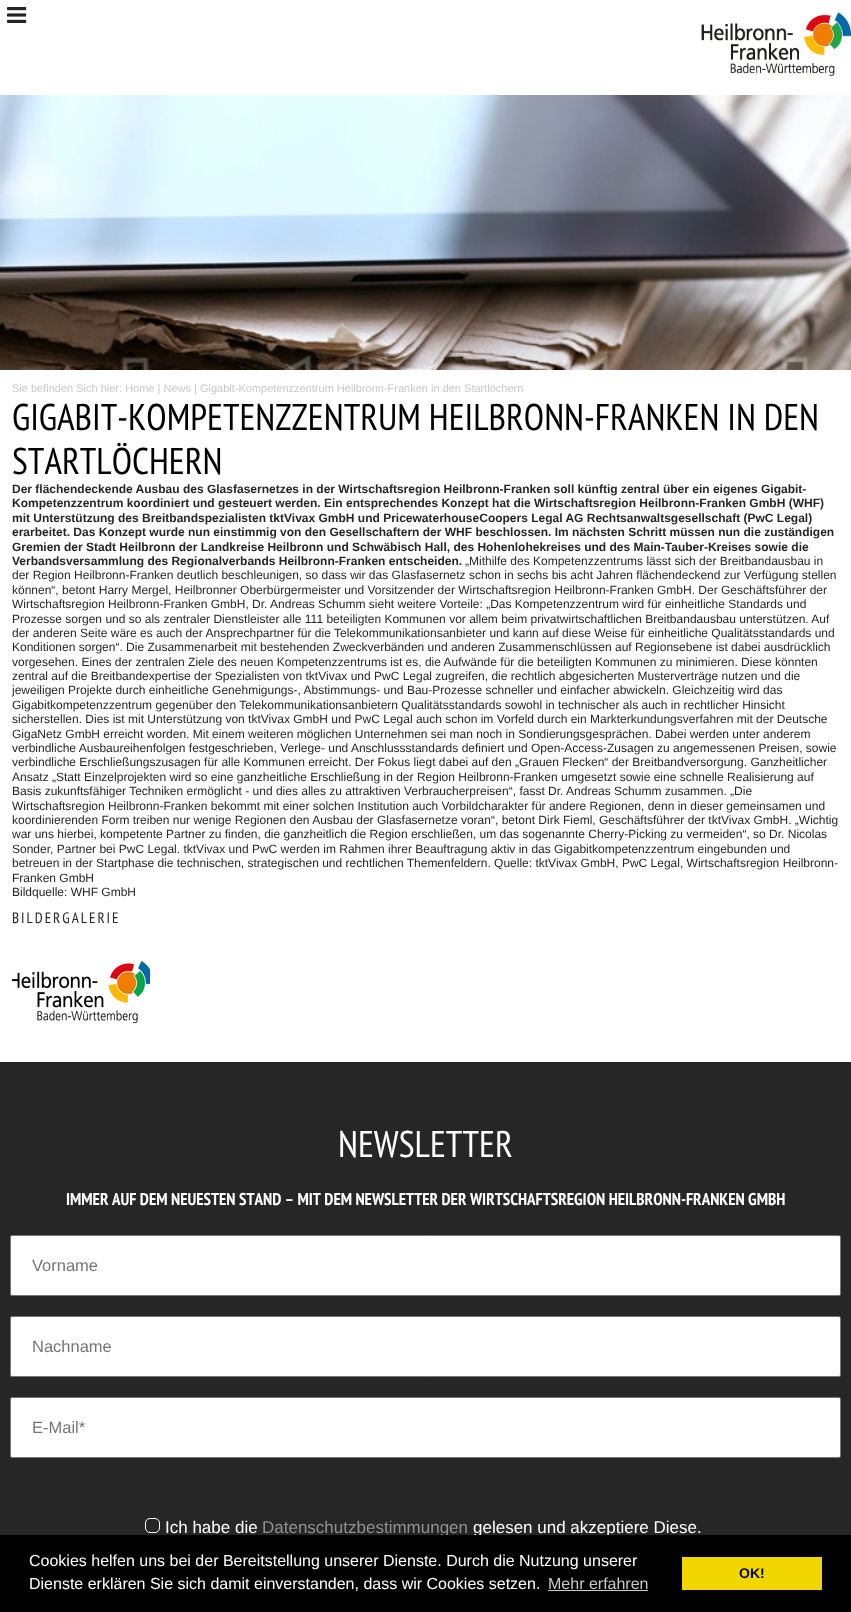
<!DOCTYPE html>
<meta charset="utf-8">
<style>body { margin: 0 } canvas { display: block }</style>
<canvas id="canvas" width="851" height="1612"></canvas>
<script type="module">
  const canvas = document.getElementById("canvas");
  const g = canvas.getContext("2d");
  g.miterLimit = 4;
  g.fontKerning = "normal";
  function drawText(s, x, y, [font, color]) {
    g.font = font;
    g.fillStyle = color;
    g.fillText(s, x, y);
  }
  function fillBox(x, y, w, h, color) {
    g.fillStyle = color;
    g.fillRect(x, y, w, h);
  }
  async function drawPicture(src, x, y, w, h) {
    const img = new Image();
    img.src = src;
    await img.decode();
    g.drawImage(img, x, y, w, h);
  }

  const s1 = ["11px Liberation Sans", "#C9C9C9"];
  const s2 = ["37.1px PT Sans Narrow", "#000000"];
  const s3 = ["bold 12px Liberation Sans", "#262626"];
  const s4 = ["12px Liberation Sans", "#262626"];
  const s5 = ["15px PT Sans Narrow", "#262626"];
  const s6 = ["37.1px PT Sans Narrow", "#FFFFFF"];
  const s7 = ["bold 17px PT Sans Narrow", "#FFFFFF"];
  const s8 = ["16.5px Liberation Sans", "#757575"];
  const s9 = ["17px Liberation Sans", "#FFFFFF"];
  const s10 = ["17px Liberation Sans", "#919191"];
  const s11 = ["16px Liberation Sans", "#FFFFFF"];
  const s12 = ["16px Liberation Sans", "#C9C9C9"];
  const s13 = ["bold 14px Liberation Sans", "#000000"];

  fillBox(0, 0, 851, 1612, "#FFFFFF");
  await drawPicture("pic1.png", 7, 7, 20, 16);
  await drawPicture("pic2.png", 701, 12, 150, 64);
  await drawPicture("pic3.png", 0, 95, 851, 275);
  drawText("Sie befinden Sich hier: Home | News | Gigabit-Kompetenzzentrum Heilbronn-Franken in den Startlöchern", 12, 392, s1);
  drawText("GIGABIT-KOMPETENZZENTRUM HEILBRONN-FRANKEN IN DEN", 12, 430, s2);
  drawText("STARTLÖCHERN", 12, 474, s2);
  drawText("Der flächendeckende Ausbau des Glasfasernetzes in der Wirtschaftsregion Heilbronn-Franken soll künftig zentral über ein eigenes Gigabit-", 12, 493, s3);
  drawText("Kompetenzzentrum koordiniert und gesteuert werden. Ein entsprechendes Konzept hat die Wirtschaftsregion Heilbronn-Franken GmbH (WHF)", 12, 507, s3);
  drawText("mit Unterstützung des Breitbandspezialisten tktVivax GmbH und PricewaterhouseCoopers Legal AG Rechtsanwaltsgesellschaft (PwC Legal)", 12, 522, s3);
  drawText("erarbeitet. Das Konzept wurde nun einstimmig von den Gesellschaftern der WHF beschlossen. Im nächsten Schritt müssen nun die zuständigen", 12, 536, s3);
  drawText("Gremien der Stadt Heilbronn der Landkreise Heilbronn und Schwäbisch Hall, des Hohenlohekreises und des Main-Tauber-Kreises sowie die", 12, 551, s3);
  drawText("Verbandsversammlung des Regionalverbands Heilbronn-Franken entscheiden.", 12, 565, s3);
  drawText("„Mithilfe des Kompetenzzentrums lässt sich der Breitbandausbau in", 465, 565, s4);
  drawText("der Region Heilbronn-Franken deutlich beschleunigen, so dass wir das Glasfasernetz schon in sechs bis acht Jahren flächendeckend zur Verfügung stellen", 12, 579, s4);
  drawText("können“, betont Harry Mergel, Heilbronner Oberbürgermeister und Vorsitzender der Wirtschaftsregion Heilbronn-Franken GmbH. Der Geschäftsführer der", 12, 594, s4);
  drawText("Wirtschaftsregion Heilbronn-Franken GmbH, Dr. Andreas Schumm sieht weitere Vorteile: „Das Kompetenzzentrum wird für einheitliche Standards und", 12, 608, s4);
  drawText("Prozesse sorgen und so als zentraler Dienstleister alle 111 beteiligten Kommunen vor allem beim privatwirtschaftlichen Breitbandausbau unterstützen. Auf", 12, 623, s4);
  drawText("der anderen Seite wäre es auch der Ansprechpartner für die Telekommunikationsanbieter und kann auf diese Weise für einheitliche Qualitätsstandards und", 12, 637, s4);
  drawText("Konditionen sorgen“. Die Zusammenarbeit mit bestehenden Zweckverbänden und anderen Zusammenschlüssen auf Regionsebene ist dabei ausdrücklich", 12, 651, s4);
  drawText("vorgesehen. Eines der zentralen Ziele des neuen Kompetenzzentrums ist es, die Aufwände für die beteiligten Kommunen zu minimieren. Diese könnten", 12, 666, s4);
  drawText("zentral auf die Breitbandexpertise der Spezialisten von tktVivax und PwC Legal zugreifen, die rechtlich abgesicherten Musterverträge nutzen und die", 12, 680, s4);
  drawText("jeweiligen Projekte durch einheitliche Genehmigungs-, Abstimmungs- und Bau-Prozesse schneller und einfacher abwickeln. Gleichzeitig wird das", 12, 694, s4);
  drawText("Gigabitkompetenzzentrum gegenüber den Telekommunikationsanbietern Qualitätsstandards sowohl in technischer als auch in rechtlicher Hinsicht", 12, 709, s4);
  drawText("sicherstellen. Dies ist mit Unterstützung von tktVivax GmbH und PwC Legal auch schon im Vorfeld durch ein Markterkundungsverfahren mit der Deutsche", 12, 723, s4);
  drawText("GigaNetz GmbH erreicht worden. Mit einem weiteren möglichen Unternehmen sei man noch in Sondierungsgesprächen. Dabei werden unter anderem", 12, 738, s4);
  drawText("verbindliche Ausbaureihenfolgen festgeschrieben, Verlege- und Anschlussstandards definiert und Open-Access-Zusagen zu angemessenen Preisen, sowie", 12, 752, s4);
  drawText("verbindliche Erschließungszusagen für alle Kommunen erreicht. Der Fokus liegt dabei auf den „Grauen Flecken“ der Breitbandversorgung. Ganzheitlicher", 12, 766, s4);
  drawText("Ansatz „Statt Einzelprojekten wird so eine ganzheitliche Erschließung in der Region Heilbronn-Franken umgesetzt sowie eine schnelle Realisierung auf", 12, 781, s4);
  drawText("Basis zukunftsfähiger Techniken ermöglicht - und dies alles zu attraktiven Verbraucherpreisen“, fasst Dr. Andreas Schumm zusammen. „Die", 12, 795, s4);
  drawText("Wirtschaftsregion Heilbronn-Franken bekommt mit einer solchen Institution auch Vorbildcharakter für andere Regionen, denn in dieser gemeinsamen und", 12, 810, s4);
  drawText("koordinierenden Form treiben nur wenige Regionen den Ausbau der Glasfasernetze voran“, betont Dirk Fieml, Geschäftsführer der tktVivax GmbH. „Wichtig", 12, 824, s4);
  drawText("war uns hierbei, kompetente Partner zu finden, die ganzheitlich die Region erschließen, um das sogenannte Cherry-Picking zu vermeiden“, so Dr. Nicolas", 12, 838, s4);
  drawText("Sonder, Partner bei PwC Legal. tktVivax und PwC werden im Rahmen ihrer Beauftragung aktiv in das Gigabitkompetenzzentrum eingebunden und", 12, 853, s4);
  drawText("betreuen in der Startphase die technischen, strategischen und rechtlichen Themenfeldern. Quelle: tktVivax GmbH, PwC Legal, Wirtschaftsregion Heilbronn-", 12, 867, s4);
  drawText("Franken GmbH", 12, 882, s4);
  drawText("Bildquelle: WHF GmbH", 12, 896, s4);
  g.letterSpacing = "2px";
  drawText("BILDERGALERIE", 12, 923, s5);
  await drawPicture("pic4.png", 12, 961, 138, 63);
  fillBox(0, 1062, 851, 473, "#262626");
  g.letterSpacing = "0px";
  drawText("NEWSLETTER", 338, 1157, s6);
  drawText("IMMER AUF DEM NEUESTEN STAND – MIT DEM NEWSLETTER DER WIRTSCHAFTSREGION HEILBRONN-FRANKEN GMBH", 66, 1205, s7);
  g.beginPath();
  g.roundRect(10.5, 1235.5, 830, 60, 1.5);
  g.fill();
  g.strokeStyle = "#767676";
  g.stroke();
  drawText("Vorname", 32, 1271, s8);
  g.fillStyle = "#FFFFFF";
  g.beginPath();
  g.roundRect(10.5, 1316.5, 830, 60, 1.5);
  g.fill();
  g.stroke();
  drawText("Nachname", 32, 1352, s8);
  g.fillStyle = "#FFFFFF";
  g.beginPath();
  g.roundRect(10.5, 1397.5, 830, 60, 1.5);
  g.fill();
  g.stroke();
  drawText("E-Mail*", 32, 1433, s8);
  g.beginPath();
  g.roundRect(145.5, 1518.5, 14, 14, 4.5);
  g.strokeStyle = "#FFFFFF";
  g.stroke();
  drawText("Ich habe die", 165, 1533, s9);
  drawText("Datenschutzbestimmungen", 262, 1533, s10);
  drawText("gelesen und akzeptiere Diese.", 473, 1533, s9);
  fillBox(0, 1535, 851, 77, "#000000");
  drawText("Cookies helfen uns bei der Bereitstellung unserer Dienste. Durch die Nutzung unserer", 29, 1566, s11);
  drawText("Dienste erklären Sie sich damit einverstanden, dass wir Cookies setzen.", 29, 1589, s11);
  drawText("Mehr erfahren", 548, 1589, s12);
  fillBox(548, 1590, 100, 1, "#CCCCCC");
  fillBox(682, 1557, 140, 33, "#F1D600");
  drawText("OK!", 739, 1578, s13);
</script>
